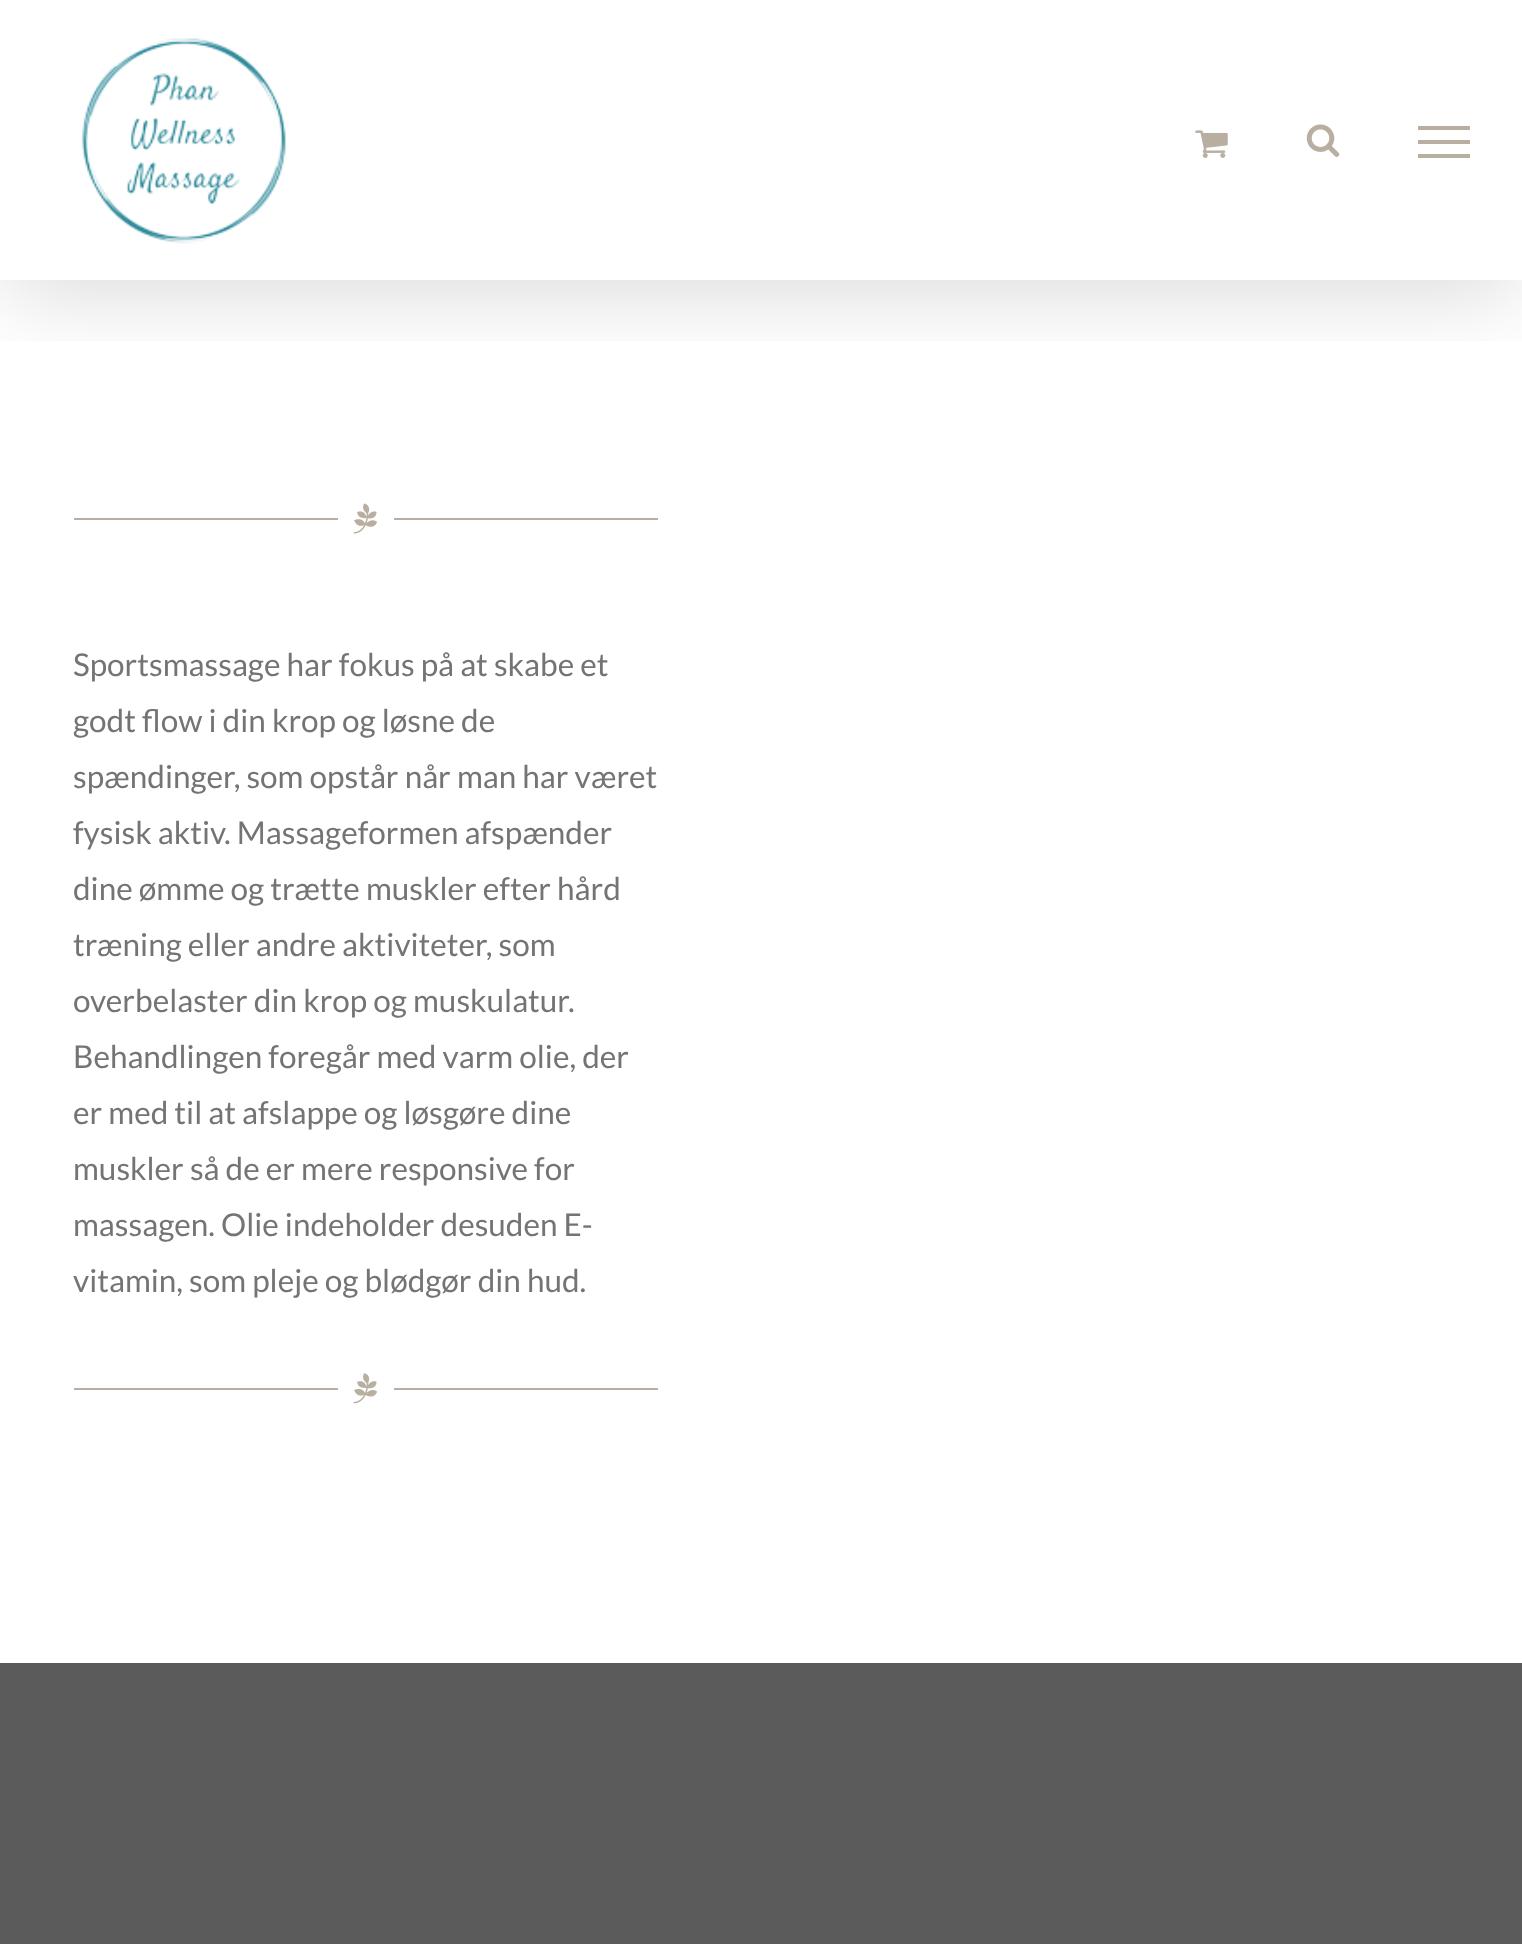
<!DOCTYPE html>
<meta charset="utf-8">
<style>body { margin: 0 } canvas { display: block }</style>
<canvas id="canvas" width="1522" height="1944"></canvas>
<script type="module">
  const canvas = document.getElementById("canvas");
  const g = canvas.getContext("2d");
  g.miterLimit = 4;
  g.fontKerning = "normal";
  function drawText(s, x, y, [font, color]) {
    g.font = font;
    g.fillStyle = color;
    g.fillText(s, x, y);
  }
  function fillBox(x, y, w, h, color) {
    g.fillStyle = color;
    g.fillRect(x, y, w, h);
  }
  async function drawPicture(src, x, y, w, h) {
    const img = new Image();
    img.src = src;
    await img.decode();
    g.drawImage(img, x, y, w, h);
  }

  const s1 = ["31.5px Lato", "#747474"];

  fillBox(0, 0, 1522, 1944, "#FFFFFF");
  g.save();
  g.beginPath();
  g.rect(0, 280, 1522, 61);
  g.clip();
  g.fillStyle = "rgba(0, 0, 0, 0.14)";
  g.filter = "blur(44px)";
  g.beginPath();
  g.rect(4, 21, 1515, 273);
  g.fill();
  g.filter = "none";
  g.restore();
  await drawPicture("pic1.png", 81, 38, 205, 206);
  await drawPicture("pic2.png", 1195, 130, 33, 28);
  await drawPicture("pic3.png", 1306, 124, 34, 33);
  fillBox(1418, 126, 52, 4, "#B9AFA1");
  fillBox(1418, 140, 52, 4, "#B9AFA1");
  fillBox(1418, 154, 52, 4, "#B9AFA1");
  fillBox(74, 518, 264, 2, "#B9AFA1");
  await drawPicture("pic4.png", 353, 503, 24, 31);
  fillBox(394, 518, 264, 2, "#B9AFA1");
  drawText("Sportsmassage har fokus på at skabe et", 73, 676, s1);
  drawText("godt flow i din krop og løsne de", 73, 732, s1);
  drawText("spændinger, som opstår når man har været", 73, 788, s1);
  drawText("fysisk aktiv. Massageformen afspænder", 73, 844, s1);
  drawText("dine ømme og trætte muskler efter hård", 73, 900, s1);
  drawText("træning eller andre aktiviteter, som", 73, 956, s1);
  drawText("overbelaster din krop og muskulatur.", 73, 1012, s1);
  drawText("Behandlingen foregår med varm olie, der", 73, 1068, s1);
  drawText("er med til at afslappe og løsgøre dine", 73, 1124, s1);
  drawText("muskler så de er mere responsive for", 73, 1180, s1);
  drawText("massagen. Olie indeholder desuden E-", 73, 1236, s1);
  drawText("vitamin, som pleje og blødgør din hud.", 73, 1292, s1);
  fillBox(74, 1388, 264, 2, "#B9AFA1");
  await drawPicture("pic5.png", 353, 1373, 25, 31);
  fillBox(394, 1388, 264, 2, "#B9AFA1");
  fillBox(0, 1663, 1522, 281, "#5C5B5C");
</script>
